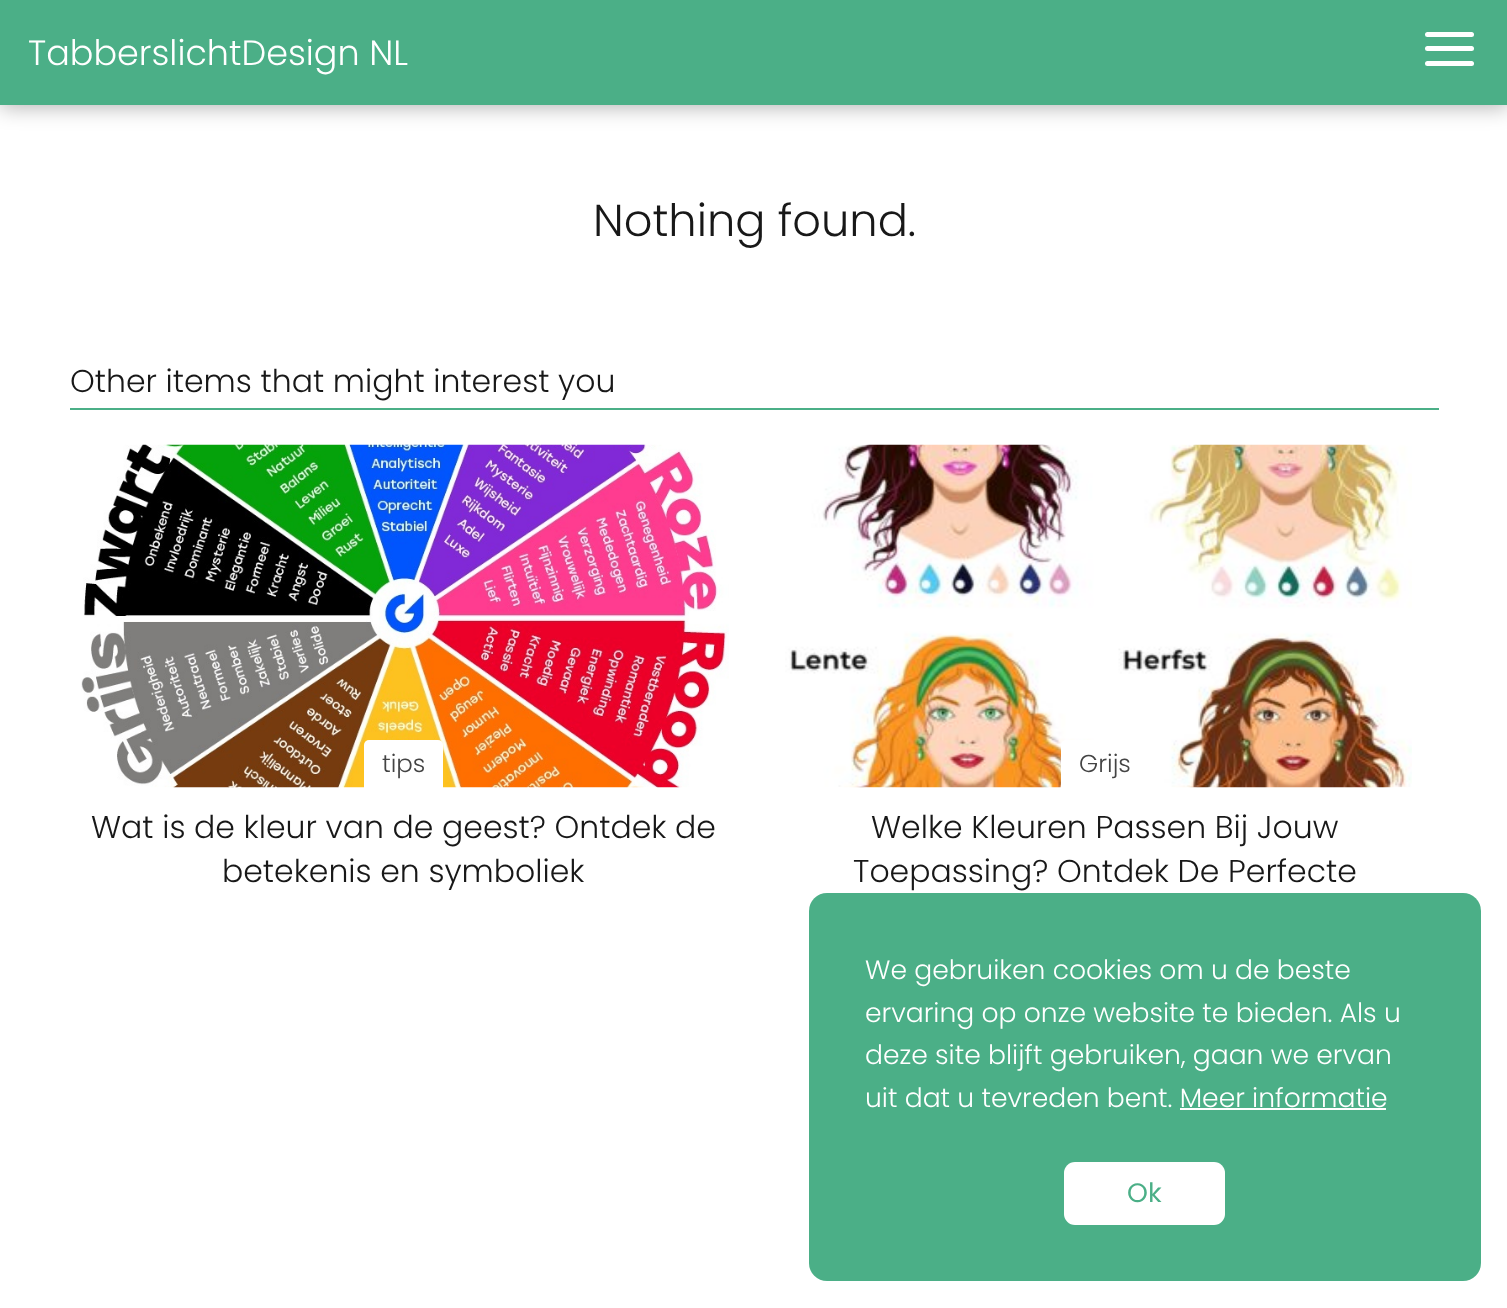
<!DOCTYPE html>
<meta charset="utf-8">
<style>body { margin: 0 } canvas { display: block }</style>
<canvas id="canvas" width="1507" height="1308"></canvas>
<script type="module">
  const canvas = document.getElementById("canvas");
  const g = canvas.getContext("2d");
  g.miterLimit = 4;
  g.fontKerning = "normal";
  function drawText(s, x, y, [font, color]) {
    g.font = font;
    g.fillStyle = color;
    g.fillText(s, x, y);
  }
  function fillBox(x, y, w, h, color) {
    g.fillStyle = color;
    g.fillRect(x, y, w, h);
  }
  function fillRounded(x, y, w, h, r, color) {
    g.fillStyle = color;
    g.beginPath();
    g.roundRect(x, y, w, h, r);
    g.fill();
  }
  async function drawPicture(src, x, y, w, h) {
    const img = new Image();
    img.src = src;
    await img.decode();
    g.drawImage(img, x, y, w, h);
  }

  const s1 = ["300 35px Poppins", "#FFFFFF"];
  const s2 = ["300 44.75px Poppins", "#181818"];
  const s3 = ["300 31.5px Poppins", "#181818"];
  const s4 = ["300 24.5px Poppins", "#444444"];
  const s5 = ["300 26.6px Poppins", "#FFFFFF"];
  const s6 = ["26.6px Poppins", "#4BAF87"];

  fillBox(0, 0, 1507, 1308, "#FFFFFF");
  g.fillStyle = "rgba(0, 0, 0, 0.3)";
  g.filter = "blur(10.5px)";
  g.beginPath();
  g.rect(0, 2, 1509, 105);
  g.fill();
  g.filter = "none";
  fillBox(0, 0, 1507, 105, "#4BAF87");
  drawText("TabberslichtDesign NL", 28, 65, s1);
  fillRounded(1425, 32, 49, 5, 2.5, "#FFFFFF");
  fillRounded(1425, 46, 49, 5, 2.5, "#FFFFFF");
  fillRounded(1425, 61, 49, 5, 2.5, "#FFFFFF");
  drawText("Nothing found.", 593, 236, s2);
  fillBox(70, 408, 1369, 2, "#4BAF87");
  drawText("Other items that might interest you", 70, 392, s3);
  await drawPicture("pic1.png", 81, 444, 648, 344);
  g.fillStyle = "#FFFFFF";
  g.beginPath();
  g.roundRect(364, 740, 79, 48, [5, 5, 0, 0]);
  g.fill();
  drawText("tips", 382, 772, s4);
  drawText("Wat is de kleur van de geest? Ontdek de", 91, 838, s3);
  drawText("betekenis en symboliek", 222, 882, s3);
  await drawPicture("pic2.png", 785, 444, 627, 344);
  g.fillStyle = "#FFFFFF";
  g.beginPath();
  g.roundRect(1061, 740, 89, 48, [5, 5, 0, 0]);
  g.fill();
  drawText("Grijs", 1079, 772, s4);
  drawText("Welke Kleuren Passen Bij Jouw", 871, 838, s3);
  drawText("Toepassing? Ontdek De Perfecte", 853, 882, s3);
  fillRounded(809, 893, 672, 388, 18, "#4BAF87");
  drawText("We gebruiken cookies om u de beste", 865, 979, s5);
  drawText("ervaring op onze website te bieden. Als u", 865, 1022, s5);
  drawText("deze site blijft gebruiken, gaan we ervan", 865, 1064, s5);
  drawText("uit dat u tevreden bent. Meer informatie", 865, 1107, s5);
  fillBox(1180, 1108, 206, 2, "#FFFFFF");
  fillRounded(1064, 1162, 161, 63, 11, "#FFFFFF");
  drawText("Ok", 1127, 1202, s6);
</script>
